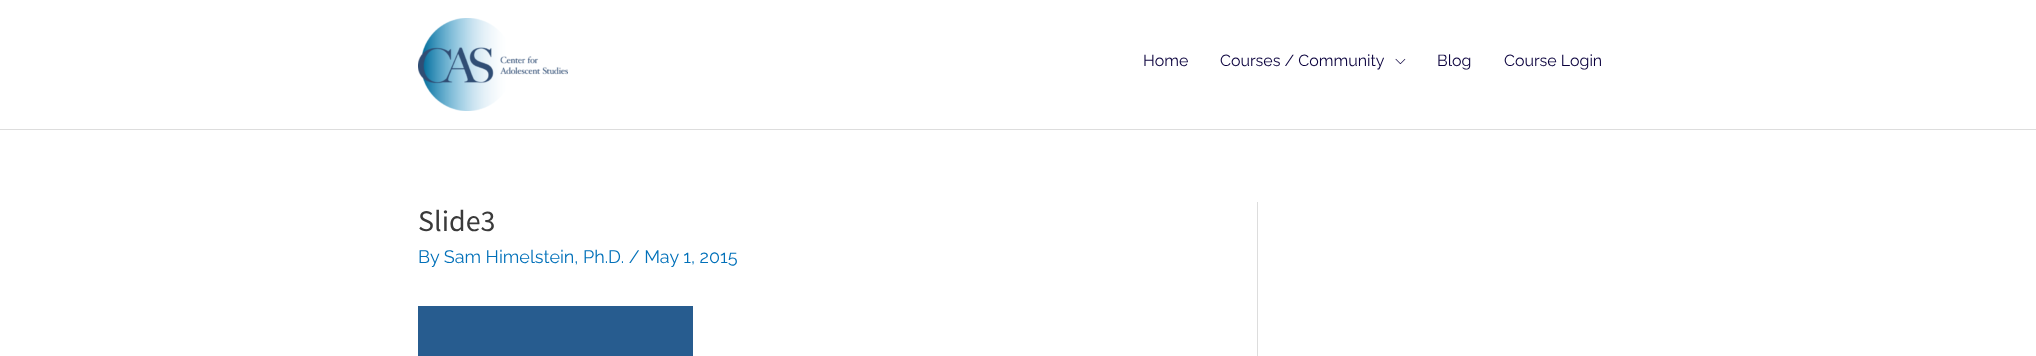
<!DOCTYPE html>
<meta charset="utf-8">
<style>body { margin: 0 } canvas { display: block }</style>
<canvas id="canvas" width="2036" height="356"></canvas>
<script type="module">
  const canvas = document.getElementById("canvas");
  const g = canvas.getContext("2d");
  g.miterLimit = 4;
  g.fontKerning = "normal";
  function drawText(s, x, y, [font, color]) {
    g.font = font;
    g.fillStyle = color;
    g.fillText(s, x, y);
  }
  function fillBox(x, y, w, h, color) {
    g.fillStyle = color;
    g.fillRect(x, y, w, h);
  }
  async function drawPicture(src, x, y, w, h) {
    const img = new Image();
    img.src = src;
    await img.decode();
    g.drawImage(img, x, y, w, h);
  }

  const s1 = ["100 16px Raleway", "#0A003D"];
  const s2 = ["30px Source Sans Pro", "#3A3A3A"];
  const s3 = ["100 18px Raleway", "#0170B9"];

  fillBox(0, 0, 2036, 356, "#FFFFFF");
  fillBox(0, 129, 2036, 1, "#DDDDDD");
  await drawPicture("pic1.png", 418, 18, 150, 93);
  drawText("Home", 1143, 66, s1);
  drawText("Courses / Community", 1220, 66, s1);
  await drawPicture("pic2.png", 1395, 58, 11, 7);
  drawText("Blog", 1437, 66, s1);
  drawText("Course Login", 1504, 66, s1);
  fillBox(1257, 202, 1, 154, "#DDDDDD");
  drawText("Slide3", 418, 231, s2);
  drawText("By Sam Himelstein, Ph.D. / May 1, 2015", 418, 263, s3);
  fillBox(418, 306, 275, 50, "#275C8F");
</script>
